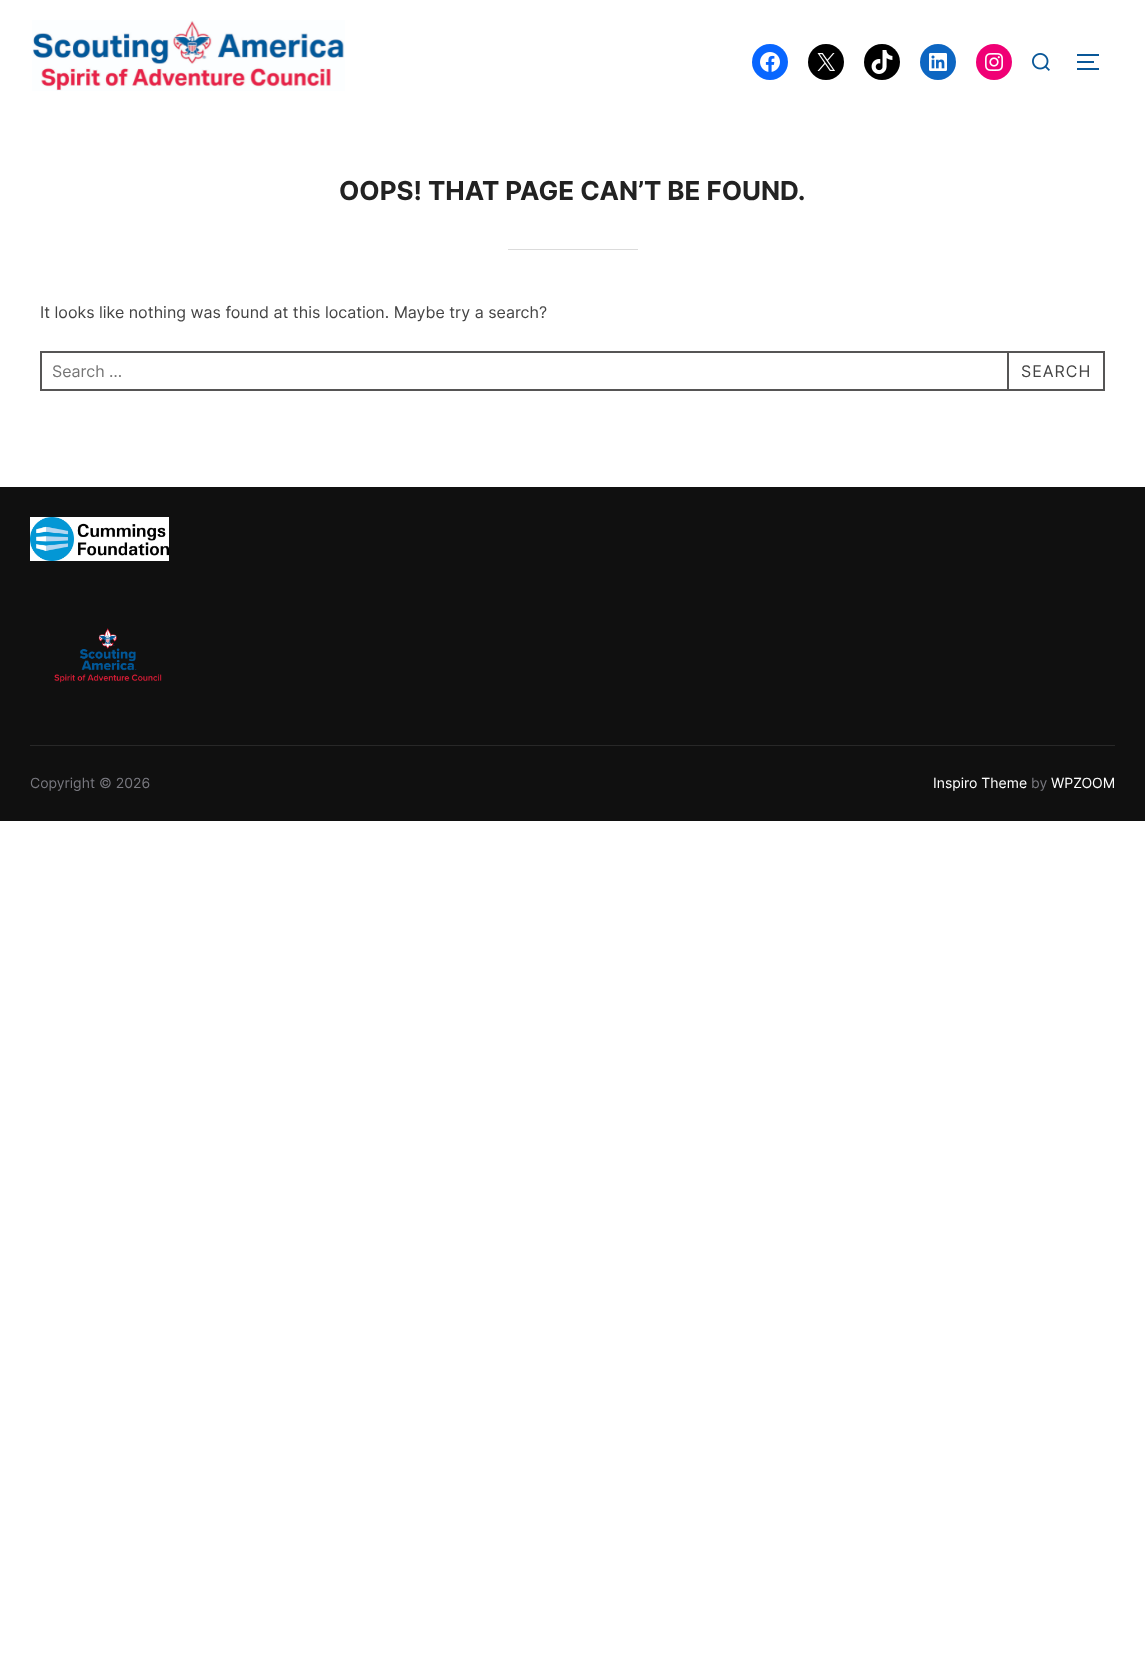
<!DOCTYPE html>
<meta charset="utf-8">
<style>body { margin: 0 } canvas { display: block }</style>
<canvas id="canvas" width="1145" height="1670"></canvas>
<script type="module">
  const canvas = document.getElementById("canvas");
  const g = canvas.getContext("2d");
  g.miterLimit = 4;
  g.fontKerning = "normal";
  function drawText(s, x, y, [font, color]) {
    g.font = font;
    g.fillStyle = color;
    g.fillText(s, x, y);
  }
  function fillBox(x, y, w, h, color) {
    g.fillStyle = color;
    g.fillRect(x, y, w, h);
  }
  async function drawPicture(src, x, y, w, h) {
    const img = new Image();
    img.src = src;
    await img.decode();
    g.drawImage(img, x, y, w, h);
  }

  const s1 = ["bold 26px Inter", "#222222"];
  const s2 = ["16px Inter", "#444444"];
  const s3 = ["16px Inter", "#757575"];
  const s4 = ["14px Inter", "#78787F"];
  const s5 = ["14px Inter", "#FFFFFF"];

  fillBox(0, 0, 1145, 1670, "#FFFFFF");
  await drawPicture("pic1.png", 32, 20, 313, 71);
  g.fillStyle = "#0866FF";
  g.beginPath();
  g.arc(770, 62, 18, 0, Math.PI * 2);
  g.fill();
  await drawPicture("pic2.png", 760, 52, 20, 20);
  g.fillStyle = "#000000";
  g.beginPath();
  g.arc(826, 62, 18, 0, Math.PI * 2);
  g.fill();
  await drawPicture("pic3.png", 817, 53, 18, 18);
  g.beginPath();
  g.arc(882, 62, 18, 0, Math.PI * 2);
  g.fill();
  await drawPicture("pic4.png", 871, 50, 22, 24);
  g.fillStyle = "#0D66C2";
  g.beginPath();
  g.arc(938, 62, 18, 0, Math.PI * 2);
  g.fill();
  await drawPicture("pic5.png", 929, 53, 18, 18);
  g.fillStyle = "#F00075";
  g.beginPath();
  g.arc(994, 62, 18, 0, Math.PI * 2);
  g.fill();
  await drawPicture("pic6.png", 985, 53, 18, 18);
  await drawPicture("pic7.png", 1032, 53, 18, 18);
  fillBox(1077, 54, 22, 2, "#095798");
  fillBox(1077, 61, 17, 2, "#095798");
  fillBox(1077, 68, 22, 2, "#095798");
  drawText("OOPS! THAT PAGE CAN’T BE FOUND.", 339, 200, s1);
  fillBox(508, 249, 130, 1, "#DBDBDB");
  drawText("It looks like nothing was found at this location. Maybe try a search?", 40, 318, s2);
  g.strokeStyle = "#565555";
  g.lineWidth = 2;
  g.strokeRect(41, 352, 1063, 38);
  drawText("Search …", 52, 377, s3);
  g.strokeRect(1008, 352, 96, 38);
  g.letterSpacing = "1px";
  drawText("SEARCH", 1021, 377, s2);
  fillBox(0, 487, 1145, 334, "#101010");
  await drawPicture("pic8.png", 30, 517, 139, 44);
  await drawPicture("pic9.png", 54, 628, 108, 55);
  fillBox(30, 745, 1085, 1, "#282828");
  g.letterSpacing = "0px";
  drawText("Copyright © 2026", 30, 788, s4);
  drawText("Inspiro Theme", 933, 788, s5);
  drawText("by", 1031, 788, s4);
  drawText("WPZOOM", 1051, 788, s5);
</script>
